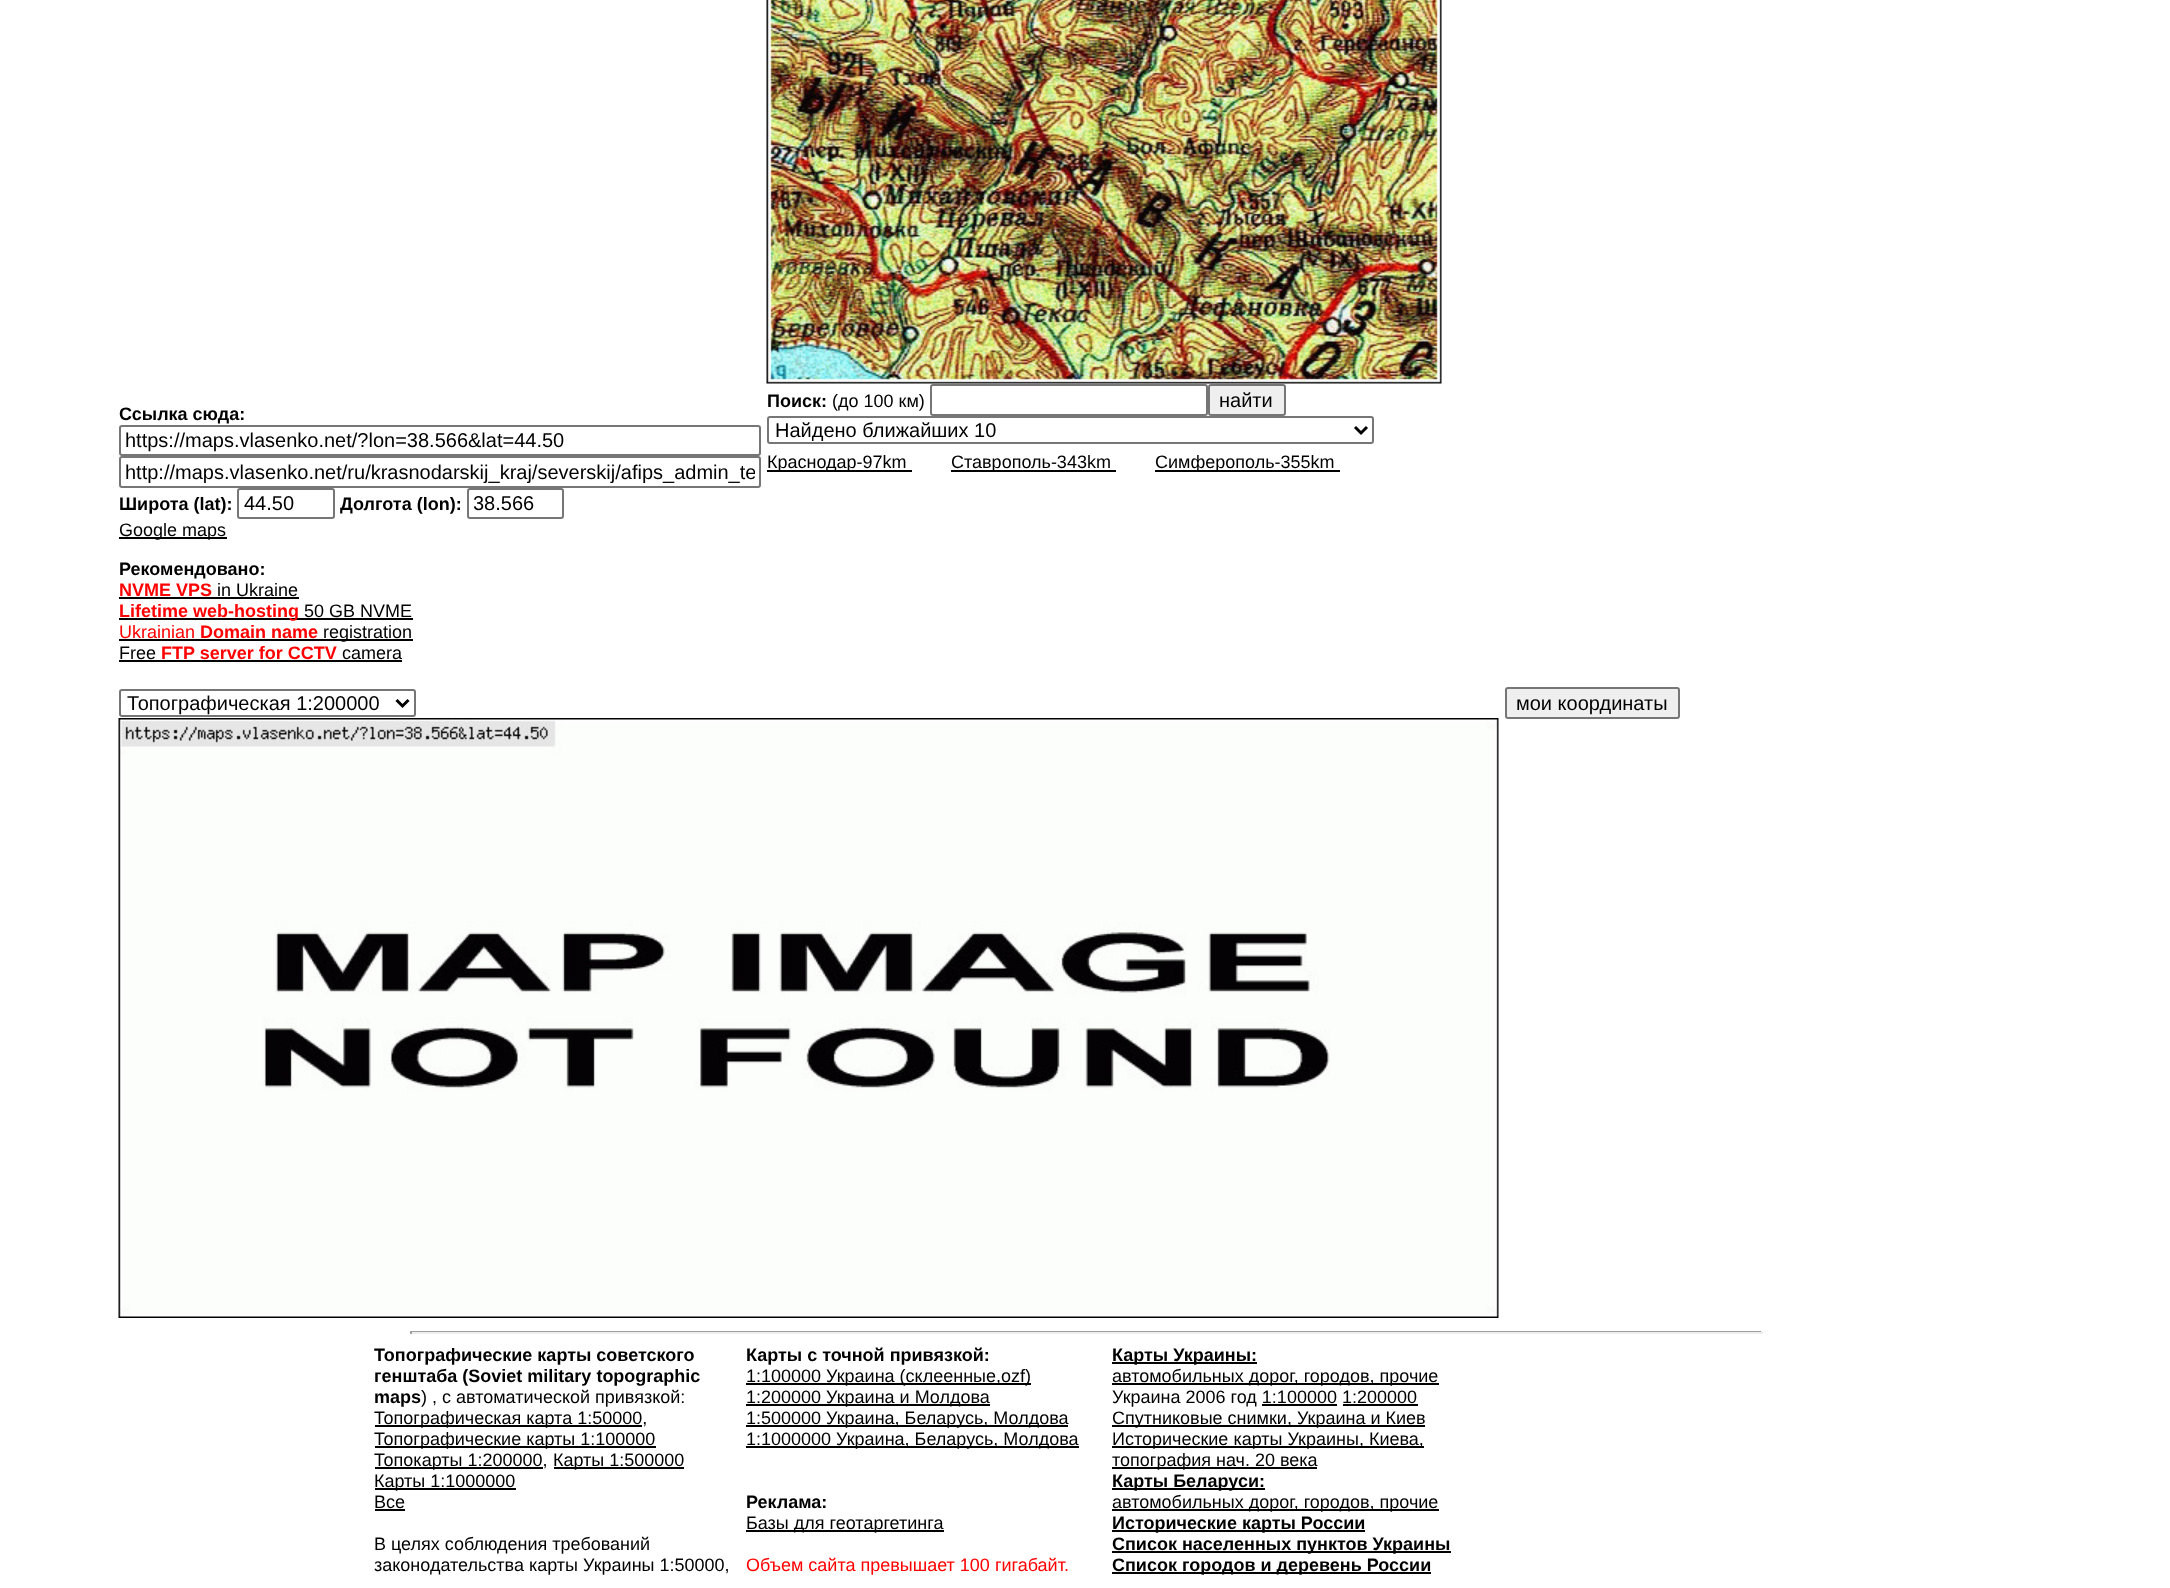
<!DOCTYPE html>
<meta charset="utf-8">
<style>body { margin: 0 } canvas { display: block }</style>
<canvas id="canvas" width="2170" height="1588"></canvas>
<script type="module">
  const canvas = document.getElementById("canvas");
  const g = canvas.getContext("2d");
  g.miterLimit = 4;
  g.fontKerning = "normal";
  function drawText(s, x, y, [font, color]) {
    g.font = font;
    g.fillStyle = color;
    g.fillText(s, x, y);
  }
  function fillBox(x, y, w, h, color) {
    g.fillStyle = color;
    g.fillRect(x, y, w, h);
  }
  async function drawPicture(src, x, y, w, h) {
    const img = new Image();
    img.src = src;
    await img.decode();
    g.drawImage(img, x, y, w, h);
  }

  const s1 = ["bold 18px Liberation Sans", "#000000"];
  const s2 = ["20px Liberation Sans", "#000000"];
  const s3 = ["18px Liberation Sans", "#000000"];
  const s4 = ["bold 18px Liberation Sans", "#FF0000"];
  const s5 = ["18px Liberation Sans", "#FF0000"];

  fillBox(0, 0, 2170, 1588, "#FFFFFF");
  drawText("Ссылка сюда:", 119, 420, s1);
  g.beginPath();
  g.roundRect(120, 426, 640, 29, 2);
  g.strokeStyle = "#767676";
  g.lineWidth = 2;
  g.stroke();
  drawText("https://maps.vlasenko.net/?lon=38.566&lat=44.50", 125, 447, s2);
  g.beginPath();
  g.roundRect(120, 457, 640, 30, 2);
  g.stroke();
  g.save();
  g.beginPath();
  g.rect(125, 461, 630, 22);
  g.clip();
  drawText("http://maps.vlasenko.net/ru/krasnodarskij_kraj/severskij/afips_admin_te", 125, 479, s2);
  g.restore();
  drawText("Широта (lat):", 119, 510, s1);
  g.beginPath();
  g.roundRect(238, 489, 96, 29, 2);
  g.stroke();
  drawText("44.50", 244, 510, s2);
  drawText("Долгота (lon):", 340, 510, s1);
  g.beginPath();
  g.roundRect(468, 489, 95, 29, 2);
  g.stroke();
  drawText("38.566", 473, 510, s2);
  fillBox(119, 537, 108, 2, "#000000");
  drawText("Google maps", 119, 536, s3);
  drawText("Рекомендовано:", 119, 575, s1);
  drawText("NVME VPS", 119, 596, s4);
  fillBox(119, 597, 180, 2, "#000000");
  drawText("in Ukraine", 217, 596, s3);
  fillBox(119, 618, 294, 2, "#000000");
  drawText("Lifetime web-hosting", 119, 617, s4);
  drawText("50 GB NVME", 304, 617, s3);
  drawText("Ukrainian", 119, 638, s5);
  drawText("Domain name", 200, 638, s4);
  fillBox(119, 639, 294, 2, "#000000");
  drawText("registration", 323, 638, s3);
  drawText("Free", 119, 659, s3);
  drawText("FTP server for CCTV", 161, 659, s4);
  drawText("camera", 342, 659, s3);
  fillBox(119, 660, 283, 2, "#000000");
  await drawPicture("pic1.png", 766, 0, 676, 384);
  drawText("Поиск:", 767, 407, s1);
  drawText("(до 100 км)", 832, 407, s3);
  g.beginPath();
  g.roundRect(931, 385, 276, 30, 2);
  g.stroke();
  g.fillStyle = "#EFEFEF";
  g.beginPath();
  g.roundRect(1209, 385, 76, 30, 2);
  g.fill();
  g.stroke();
  drawText("найти", 1219, 407, s2);
  g.beginPath();
  g.roundRect(768, 417, 605, 26, 2);
  g.stroke();
  g.beginPath();
  g.moveTo(1355, 427);
  g.lineTo(1361, 433);
  g.lineTo(1367, 427);
  g.strokeStyle = "#000000";
  g.lineWidth = 3;
  g.stroke();
  drawText("Найдено ближайших 10", 775, 437, s2);
  fillBox(767, 470, 145, 2, "#000000");
  drawText("Краснодар-97km", 767, 468, s3);
  fillBox(951, 470, 165, 2, "#000000");
  drawText("Ставрополь-343km", 951, 468, s3);
  fillBox(1155, 470, 185, 2, "#000000");
  drawText("Симферополь-355km", 1155, 468, s3);
  g.beginPath();
  g.roundRect(120, 690, 295, 26, 2);
  g.strokeStyle = "#767676";
  g.lineWidth = 2;
  g.stroke();
  g.beginPath();
  g.moveTo(396.5, 700);
  g.lineTo(402.5, 706);
  g.lineTo(408.5, 700);
  g.strokeStyle = "#000000";
  g.lineWidth = 3;
  g.stroke();
  drawText("Топографическая 1:200000", 127, 710, s2);
  g.fillStyle = "#EFEFEF";
  g.beginPath();
  g.roundRect(1506, 688, 173, 30, 2);
  g.fill();
  g.strokeStyle = "#767676";
  g.lineWidth = 2;
  g.stroke();
  drawText("мои координаты", 1516, 710, s2);
  await drawPicture("pic2.png", 118, 718, 1381, 600);
  fillBox(410, 1331, 1353, 1, "#9F9F9F");
  fillBox(1761, 1331, 2, 3, "#EEEEEE");
  fillBox(410, 1332, 1353, 2, "#EEEEEE");
  fillBox(410, 1331, 2, 3, "#9F9F9F");
  drawText("Топографические карты советского", 374, 1361, s1);
  drawText("генштаба (Soviet military topographic", 374, 1382, s1);
  drawText("maps", 374, 1403, s1);
  drawText(") , с автоматической привязкой:", 421, 1403, s3);
  fillBox(375, 1425, 267, 2, "#000000");
  drawText("Топографическая карта 1:50000,", 374, 1424, s3);
  fillBox(375, 1446, 281, 2, "#000000");
  drawText("Топографические карты 1:100000", 374, 1445, s3);
  fillBox(375, 1467, 168, 2, "#000000");
  drawText("Топокарты 1:200000,", 374, 1466, s3);
  fillBox(554, 1467, 130, 2, "#000000");
  drawText("Карты 1:500000", 553, 1466, s3);
  fillBox(375, 1488, 141, 2, "#000000");
  drawText("Карты 1:1000000", 374, 1487, s3);
  drawText("Все", 374, 1508, s3);
  fillBox(375, 1509, 30, 2, "#000000");
  drawText("В целях соблюдения требований", 374, 1550, s3);
  drawText("законодательства карты Украины 1:50000,", 374, 1571, s3);
  drawText("Карты с точной привязкой:", 746, 1361, s1);
  fillBox(746, 1383, 285, 2, "#000000");
  drawText("1:100000 Украина (cклеенные,ozf)", 746, 1382, s3);
  fillBox(746, 1404, 244, 2, "#000000");
  drawText("1:200000 Украина и Молдова", 746, 1403, s3);
  fillBox(746, 1425, 322, 2, "#000000");
  drawText("1:500000 Украина, Беларусь, Молдова", 746, 1424, s3);
  fillBox(746, 1446, 333, 2, "#000000");
  drawText("1:1000000 Украина, Беларусь, Молдова", 746, 1445, s3);
  drawText("Реклама:", 746, 1508, s1);
  fillBox(746, 1530, 198, 2, "#000000");
  drawText("Базы для геотаргетинга", 746, 1529, s3);
  drawText("Объем сайта превышает 100 гигабайт.", 746, 1571, s5);
  fillBox(1112, 1362, 145, 2, "#000000");
  drawText("Карты Украины:", 1112, 1361, s1);
  fillBox(1112, 1383, 327, 2, "#000000");
  drawText("автомобильных дорог, городов, прочие", 1112, 1382, s3);
  drawText("Украина 2006 год 1:100000 1:200000", 1112, 1403, s3);
  fillBox(1262, 1404, 75, 2, "#000000");
  fillBox(1343, 1404, 75, 2, "#000000");
  fillBox(1112, 1425, 313, 2, "#000000");
  drawText("Спутниковые снимки, Украина и Киев", 1112, 1424, s3);
  fillBox(1112, 1446, 312, 2, "#000000");
  drawText("Исторические карты Украины, Киева,", 1112, 1445, s3);
  fillBox(1112, 1467, 205, 2, "#000000");
  drawText("топография нач. 20 века", 1112, 1466, s3);
  fillBox(1112, 1488, 153, 2, "#000000");
  drawText("Карты Беларуси:", 1112, 1487, s1);
  fillBox(1112, 1509, 327, 2, "#000000");
  drawText("автомобильных дорог, городов, прочие", 1112, 1508, s3);
  fillBox(1112, 1530, 253, 2, "#000000");
  drawText("Исторические карты России", 1112, 1529, s1);
  fillBox(1112, 1551, 339, 2, "#000000");
  drawText("Список населенных пунктов Украины", 1112, 1550, s1);
  fillBox(1112, 1572, 319, 2, "#000000");
  drawText("Список городов и деревень России", 1112, 1571, s1);
</script>
